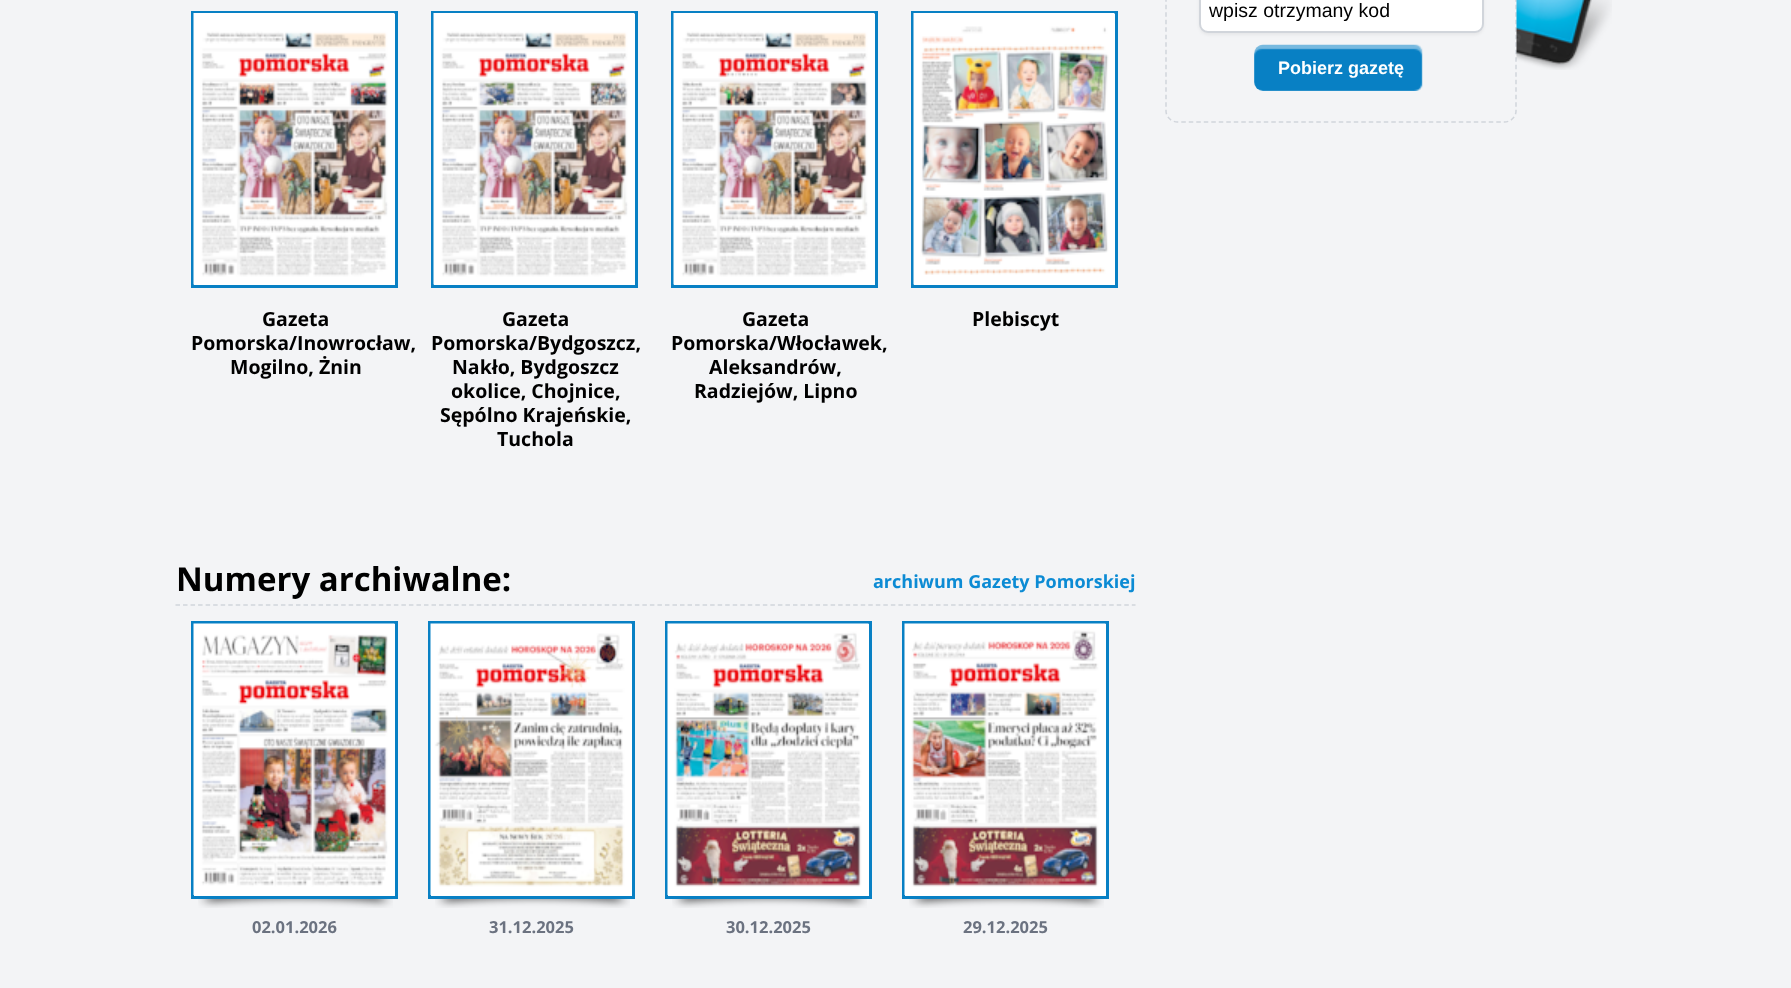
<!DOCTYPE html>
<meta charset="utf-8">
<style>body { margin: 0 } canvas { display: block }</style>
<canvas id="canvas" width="1791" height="988"></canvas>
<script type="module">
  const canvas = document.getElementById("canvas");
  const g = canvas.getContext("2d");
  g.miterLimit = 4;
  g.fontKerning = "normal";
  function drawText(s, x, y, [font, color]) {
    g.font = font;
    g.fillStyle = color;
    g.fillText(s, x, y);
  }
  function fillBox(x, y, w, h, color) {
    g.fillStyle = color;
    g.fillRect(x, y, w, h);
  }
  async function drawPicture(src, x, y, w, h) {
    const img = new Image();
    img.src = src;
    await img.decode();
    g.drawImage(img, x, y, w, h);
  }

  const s1 = ["19.5px Liberation Sans", "#000000"];
  const s2 = ["bold 18px Liberation Sans", "#FFFFFF"];
  const s3 = ["bold 19.5px Open Sans", "#000000"];
  const s4 = ["bold 33px Open Sans", "#000000"];
  const s5 = ["bold 18px Open Sans", "#0C8BD4"];
  const s6 = ["bold 16.5px Open Sans", "#6B7280"];

  fillBox(0, 0, 1791, 988, "#F3F4F6");
  g.beginPath();
  g.moveTo(1177.5, -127);
  g.lineTo(1504.5, -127);
  g.bezierCurveTo(1510.5, -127, 1516, -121.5, 1516, -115.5);
  g.lineTo(1516, 111);
  g.bezierCurveTo(1516, 117, 1510.5, 122, 1504.5, 122);
  g.lineTo(1177.5, 122);
  g.bezierCurveTo(1171.5, 122, 1166, 117, 1166, 111);
  g.lineTo(1166, -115.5);
  g.bezierCurveTo(1166, -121.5, 1171.5, -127, 1177.5, -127);
  g.closePath();
  g.strokeStyle = "#D1D5DB";
  g.lineWidth = 1.5;
  g.setLineDash([4.5, 3]);
  g.stroke();
  g.fillStyle = "rgba(0, 0, 0, 0.05)";
  g.filter = "blur(1.5px)";
  g.beginPath();
  g.roundRect(1199, -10, 285, 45, 9);
  g.fill();
  g.filter = "none";
  g.fillStyle = "#FFFFFF";
  g.beginPath();
  g.roundRect(1200, -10, 283, 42, 8);
  g.fill();
  g.lineWidth = 2;
  g.setLineDash([]);
  g.stroke();
  drawText("wpisz otrzymany kod", 1209, 17, s1);
  await drawPicture("pic1.png", 1254, 44, 169, 47);
  drawText("Pobierz gazetę", 1278, 74, s2);
  await drawPicture("pic2.png", 1516, 0, 96, 70);
  g.beginPath();
  g.rect(192.5, 12.5, 204, 274);
  g.fill();
  g.strokeStyle = "#0880C4";
  g.lineWidth = 3;
  g.stroke();
  await drawPicture("pic3.png", 193, 13, 202, 272);
  drawText("Gazeta", 262, 326, s3);
  drawText("Pomorska/Inowrocław,", 191, 350, s3);
  drawText("Mogilno, Żnin", 230, 374, s3);
  g.fillStyle = "#FFFFFF";
  g.beginPath();
  g.rect(432.5, 12.5, 204, 274);
  g.fill();
  g.stroke();
  await drawPicture("pic4.png", 433, 13, 202, 272);
  drawText("Gazeta", 502, 326, s3);
  drawText("Pomorska/Bydgoszcz,", 431, 350, s3);
  drawText("Nakło, Bydgoszcz", 452, 374, s3);
  drawText("okolice, Chojnice,", 451, 398, s3);
  drawText("Sępólno Krajeńskie,", 440, 422, s3);
  drawText("Tuchola", 497, 446, s3);
  g.fillStyle = "#FFFFFF";
  g.beginPath();
  g.rect(672.5, 12.5, 204, 274);
  g.fill();
  g.stroke();
  await drawPicture("pic5.png", 673, 13, 202, 272);
  drawText("Gazeta", 742, 326, s3);
  drawText("Pomorska/Włocławek,", 671, 350, s3);
  drawText("Aleksandrów,", 709, 374, s3);
  drawText("Radziejów, Lipno", 694, 398, s3);
  g.fillStyle = "#FFFFFF";
  g.beginPath();
  g.rect(912.5, 12.5, 204, 274);
  g.fill();
  g.stroke();
  await drawPicture("pic6.png", 913, 13, 202, 272);
  drawText("Plebiscyt", 972, 326, s3);
  g.beginPath();
  g.moveTo(175.5, 605);
  g.lineTo(1135.5, 605);
  g.strokeStyle = "#D1D5DB";
  g.lineWidth = 1.5;
  g.setLineDash([4.5, 3.03]);
  g.stroke();
  drawText("Numery archiwalne:", 176, 591, s4);
  drawText("archiwum Gazety Pomorskiej", 873, 588, s5);
  await drawPicture("pic7.png", 198, 899, 195, 9);
  g.fillStyle = "#FFFFFF";
  g.beginPath();
  g.rect(192.5, 622.5, 204, 275);
  g.fill();
  g.strokeStyle = "#0880C4";
  g.lineWidth = 3;
  g.setLineDash([]);
  g.stroke();
  await drawPicture("pic8.png", 193, 623, 202, 272);
  drawText("02.01.2026", 252, 933, s6);
  await drawPicture("pic9.png", 435, 899, 195, 9);
  g.fillStyle = "#FFFFFF";
  g.beginPath();
  g.rect(429.5, 622.5, 204, 275);
  g.fill();
  g.stroke();
  await drawPicture("pic10.png", 430, 623, 202, 272);
  drawText("31.12.2025", 489, 933, s6);
  await drawPicture("pic11.png", 672, 899, 195, 9);
  g.fillStyle = "#FFFFFF";
  g.beginPath();
  g.rect(666.5, 622.5, 204, 275);
  g.fill();
  g.stroke();
  await drawPicture("pic12.png", 667, 623, 202, 272);
  drawText("30.12.2025", 726, 933, s6);
  await drawPicture("pic7.png", 909, 899, 195, 9);
  g.fillStyle = "#FFFFFF";
  g.beginPath();
  g.rect(903.5, 622.5, 204, 275);
  g.fill();
  g.stroke();
  await drawPicture("pic13.png", 904, 623, 202, 272);
  drawText("29.12.2025", 963, 933, s6);
</script>
